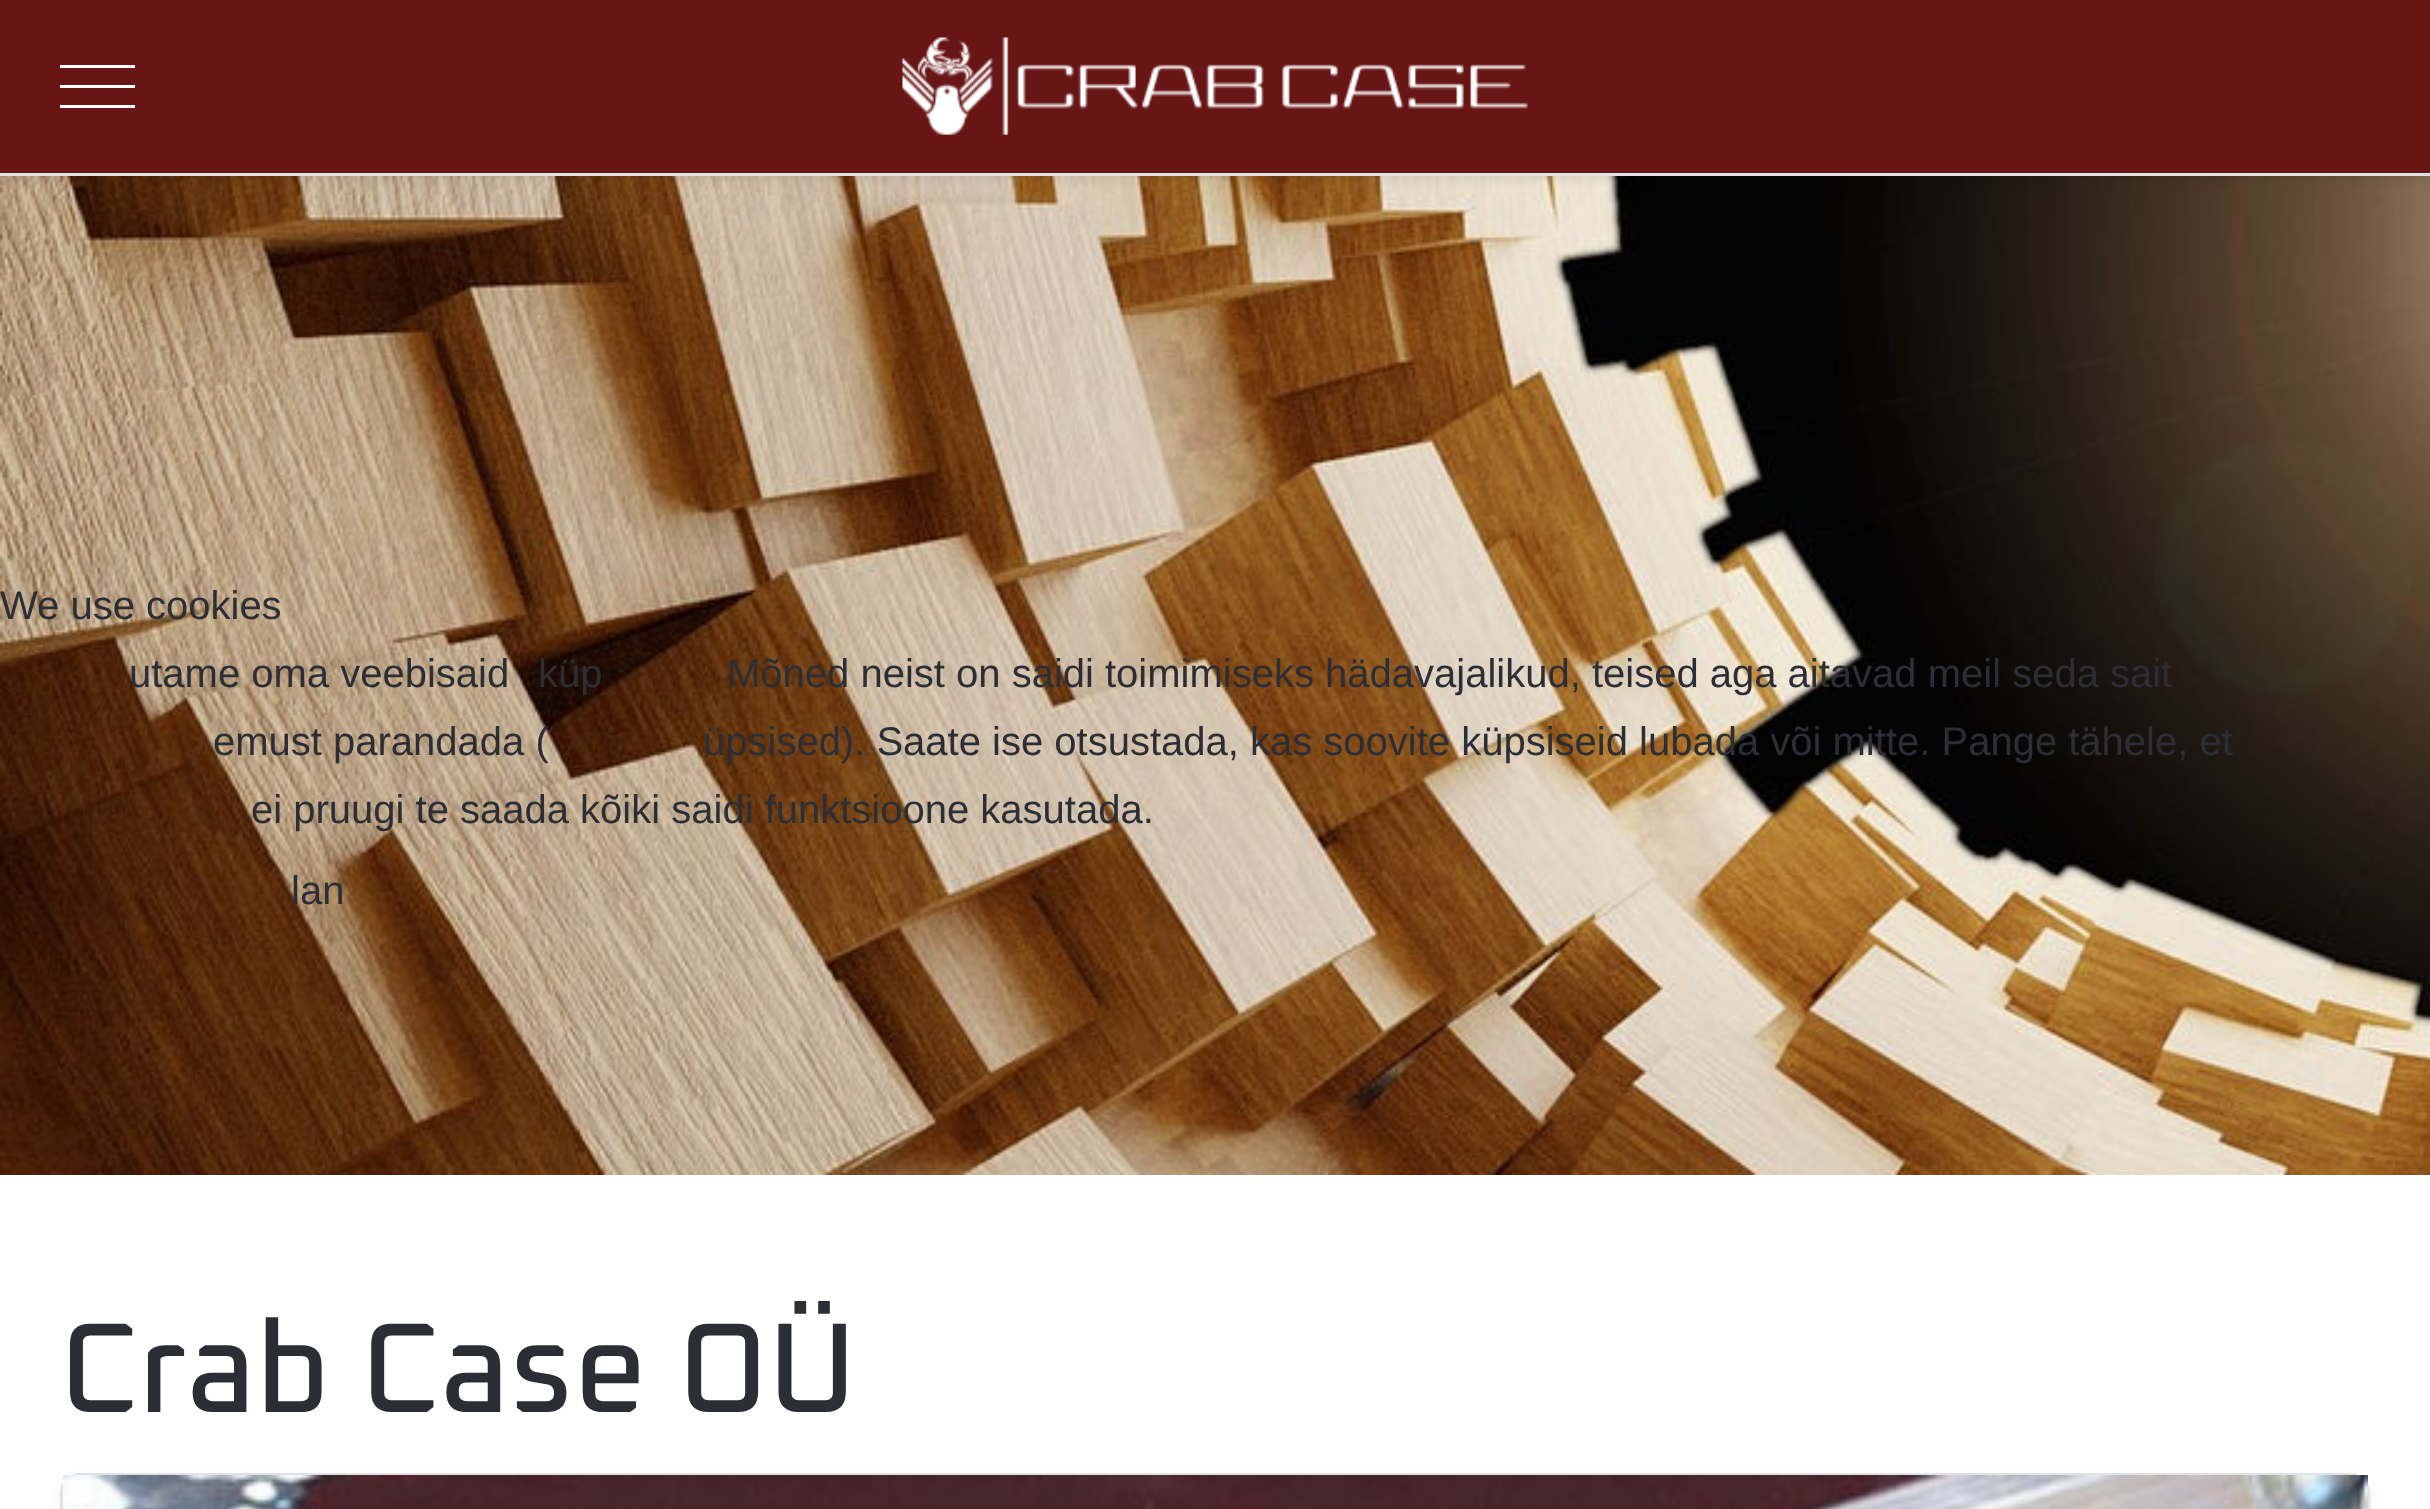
<!DOCTYPE html>
<meta charset="utf-8">
<style>body { margin: 0 } canvas { display: block }</style>
<canvas id="canvas" width="2430" height="1509"></canvas>
<script type="module">
  const canvas = document.getElementById("canvas");
  const g = canvas.getContext("2d");
  g.miterLimit = 4;
  g.fontKerning = "normal";
  function drawText(s, x, y, [font, color]) {
    g.font = font;
    g.fillStyle = color;
    g.fillText(s, x, y);
  }
  function fillBox(x, y, w, h, color) {
    g.fillStyle = color;
    g.fillRect(x, y, w, h);
  }
  async function drawPicture(src, x, y, w, h) {
    const img = new Image();
    img.src = src;
    await img.decode();
    g.drawImage(img, x, y, w, h);
  }

  const s1 = ["40px Liberation Sans", "#2C2E36"];
  const s2 = ["500 128px Oxanium", "#2C2E36"];

  fillBox(0, 0, 2430, 1509, "#FFFFFF");
  await drawPicture("pic2.png", 0, 176, 2430, 999);
  drawText("We use cookies", 0, 619, s1);
  drawText("utame oma veebisaid", 129, 687, s1);
  drawText("küp", 538, 687, s1);
  drawText("Mõned neist on saidi toimimiseks hädavajalikud, teised aga aitavad meil seda sait", 727, 687, s1);
  drawText("emust parandada (", 213, 755, s1);
  drawText("üpsised). Saate ise otsustada, kas soovite küpsiseid lubada või mitte. Pange tähele, et", 703, 755, s1);
  drawText("ei pruugi te saada kõiki saidi funktsioone kasutada.", 251, 823, s1);
  drawText("lan", 291, 904, s1);
  g.fillStyle = "rgba(0, 0, 0, 0.07)";
  g.filter = "blur(5px)";
  g.beginPath();
  g.rect(0, 5, 2430, 175);
  g.fill();
  g.filter = "none";
  fillBox(0, 0, 2430, 173, "#671515");
  fillBox(0, 173, 2430, 3, "#DEE2E6");
  fillBox(60, 85, 75, 3, "#FFFFFF");
  fillBox(60, 65, 75, 3, "#FFFFFF");
  fillBox(60, 105, 75, 3, "#FFFFFF");
  await drawPicture("pic1.png", 902, 37, 626, 98);
  drawText("Crab Case OÜ", 60, 1412, s2);
  g.fillStyle = "rgba(0, 0, 0, 0.07)";
  g.filter = "blur(5px)";
  g.beginPath();
  g.roundRect(60, 1478, 2310, 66, 20);
  g.fill();
  g.filter = "none";
  g.beginPath();
  g.roundRect(61.5, 1474.5, 2307, 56, 18.5);
  g.strokeStyle = "#DFE3E7";
  g.lineWidth = 3;
  g.stroke();
  await drawPicture("pic3.png", 63, 1475, 2305, 34);
</script>
